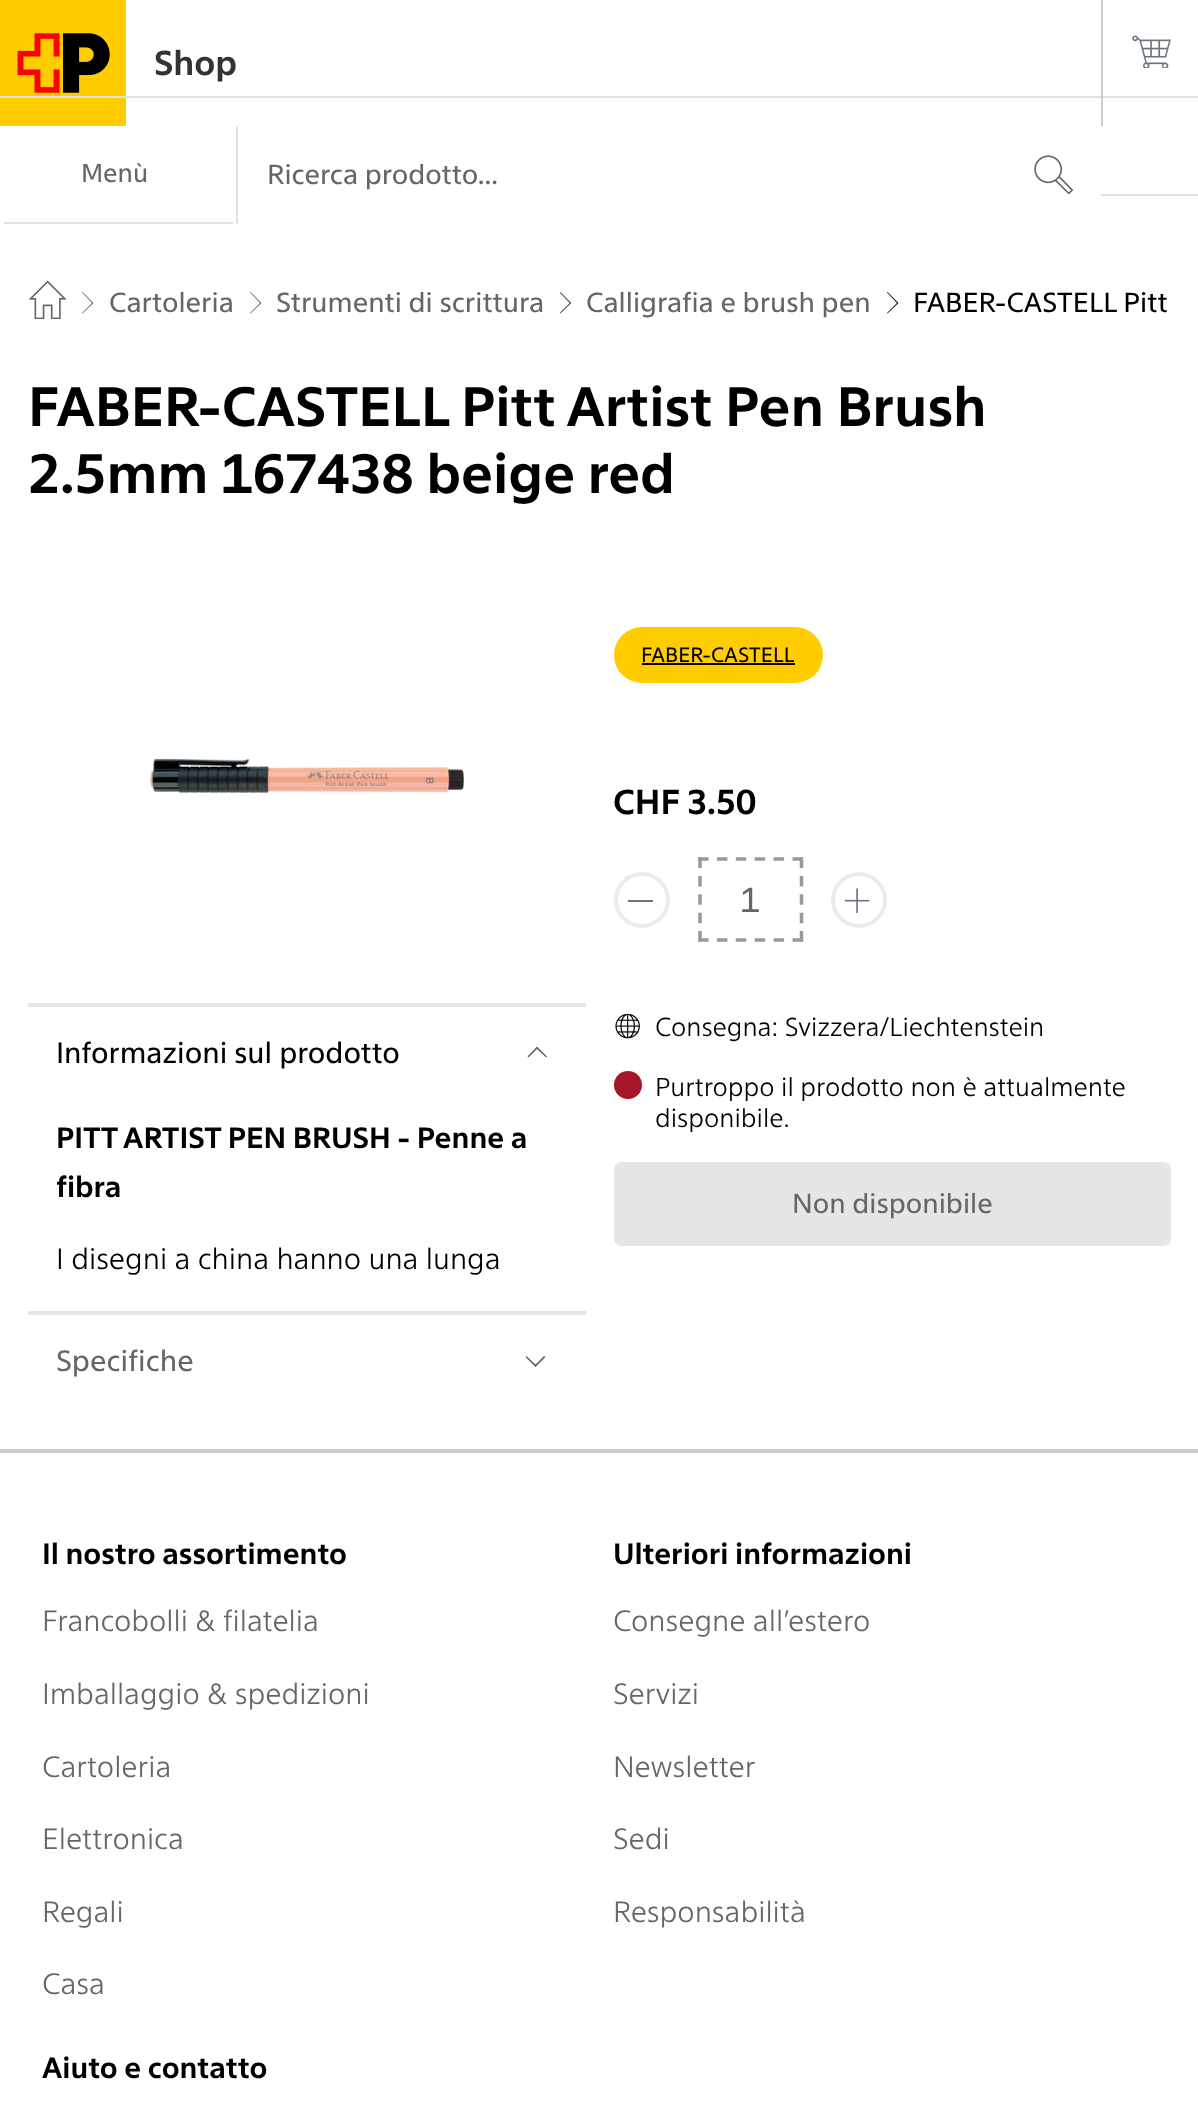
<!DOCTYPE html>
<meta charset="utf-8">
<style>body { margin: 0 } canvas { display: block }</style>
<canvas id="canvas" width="1198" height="2102"></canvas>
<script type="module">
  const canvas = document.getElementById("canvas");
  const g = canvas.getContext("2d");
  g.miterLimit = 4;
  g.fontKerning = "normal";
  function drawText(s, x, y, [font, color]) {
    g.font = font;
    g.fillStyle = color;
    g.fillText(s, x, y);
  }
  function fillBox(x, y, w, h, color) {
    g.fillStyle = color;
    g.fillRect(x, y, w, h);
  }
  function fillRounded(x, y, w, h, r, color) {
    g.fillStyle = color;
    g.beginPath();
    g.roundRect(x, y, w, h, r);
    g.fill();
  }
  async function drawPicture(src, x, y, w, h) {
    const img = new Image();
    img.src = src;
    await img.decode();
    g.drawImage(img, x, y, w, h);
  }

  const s1 = ["bold 35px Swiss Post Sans", "#333333"];
  const s2 = ["26.25px Swiss Post Sans", "#666666"];
  const s3 = ["28px Swiss Post Sans", "#666666"];
  const s4 = ["28px Swiss Post Sans", "#000000"];
  const s5 = ["bold 56px Swiss Post Sans", "#000000"];
  const s6 = ["29.75px Swiss Post Sans", "#000000"];
  const s7 = ["bold 29.75px Swiss Post Sans", "#000000"];
  const s8 = ["300 29.75px Swiss Post Sans", "#000000"];
  const s9 = ["29.75px Swiss Post Sans", "#666666"];
  const s10 = ["21px Swiss Post Sans", "#000000"];
  const s11 = ["bold 35px Swiss Post Sans", "#000000"];
  const s12 = ["35px Swiss Post Sans", "#666666"];
  const s13 = ["300 26.25px Swiss Post Sans", "#000000"];
  const s14 = ["300 29.75px Swiss Post Sans", "#666666"];

  fillBox(0, 0, 1198, 2102, "#FFFFFF");
  fillBox(1101, 194, 97, 2, "#DEE2E6");
  await drawPicture("pic1.png", 0, 0, 126, 126);
  drawText("Shop", 154, 75, s1);
  fillBox(0, 96, 1198, 2, "#DEE2E6");
  fillBox(1101, 0, 2, 126, "#CCCCCC");
  await drawPicture("pic2.png", 1132, 35, 39, 33);
  fillBox(4, 222, 229, 2, "#DEE2E6");
  drawText("Menù", 81, 182, s2);
  fillBox(236, 126, 2, 98, "#DEE2E6");
  drawText("Ricerca prodotto...", 267, 184, s3);
  await drawPicture("pic3.png", 1034, 155, 39, 39);
  await drawPicture("pic4.png", 28, 280, 39, 39);
  g.beginPath();
  g.moveTo(82.5, 292);
  g.lineTo(82, 292.5);
  g.lineTo(92, 303);
  g.lineTo(82, 313);
  g.lineTo(82.5, 313.5);
  g.lineTo(93.5, 303);
  g.closePath();
  g.fill();
  drawText("Cartoleria", 109, 312, s3);
  g.beginPath();
  g.moveTo(250.5, 292);
  g.lineTo(250, 292.5);
  g.lineTo(260, 303);
  g.lineTo(250, 313);
  g.lineTo(250.5, 313.5);
  g.lineTo(261.5, 303);
  g.closePath();
  g.fill();
  drawText("Strumenti di scrittura", 276, 312, s3);
  g.beginPath();
  g.moveTo(560.5, 292);
  g.lineTo(559.5, 292.5);
  g.lineTo(569.5, 303);
  g.lineTo(559.5, 313);
  g.lineTo(560.5, 313.5);
  g.lineTo(571.5, 303);
  g.closePath();
  g.fill();
  drawText("Calligrafia e brush pen", 586, 312, s3);
  g.fillStyle = "#000000";
  g.beginPath();
  g.moveTo(887.5, 292);
  g.lineTo(887, 292.5);
  g.lineTo(897, 303);
  g.lineTo(887, 313);
  g.lineTo(887.5, 313.5);
  g.lineTo(898.5, 303);
  g.closePath();
  g.fill();
  drawText("FABER-CASTELL Pitt", 913, 312, s4);
  drawText("FABER-CASTELL Pitt Artist Pen Brush", 28, 426, s5);
  drawText("2.5mm 167438 beige red", 28, 493, s5);
  await drawPicture("pic5.png", 150, 758, 314, 35);
  fillBox(28, 1003, 558, 4, "#E5E5E5");
  drawText("Informazioni sul prodotto", 56, 1063, s6);
  g.fillStyle = "#666666";
  g.beginPath();
  g.moveTo(547, 1056.5);
  g.lineTo(546, 1057.5);
  g.lineTo(537, 1049);
  g.lineTo(528.5, 1057.5);
  g.lineTo(527.5, 1056.5);
  g.lineTo(537, 1046.5);
  g.closePath();
  g.fill();
  drawText("PITT ARTIST PEN BRUSH - Penne a", 56, 1148, s7);
  drawText("fibra", 56, 1197, s7);
  drawText("I disegni a china hanno una lunga", 56, 1269, s8);
  fillBox(28, 1311, 558, 4, "#E5E5E5");
  drawText("Specifiche", 56, 1371, s9);
  g.beginPath();
  g.moveTo(525.5, 1357);
  g.lineTo(526.5, 1356);
  g.lineTo(535.5, 1364.5);
  g.lineTo(544, 1356);
  g.lineTo(545.5, 1357);
  g.lineTo(535.5, 1367);
  g.closePath();
  g.fill();
  fillRounded(614, 627, 209, 56, 28, "#FFCC00");
  drawText("FABER-CASTELL", 641, 662, s10);
  fillBox(642, 663, 153, 2, "#000000");
  drawText("CHF 3.50", 613, 814, s11);
  g.beginPath();
  g.arc(642, 900, 26, 0, Math.PI * 2);
  g.strokeStyle = "#E9ECEF";
  g.lineWidth = 4;
  g.stroke();
  fillBox(628, 900, 25, 2, "#6C757D");
  g.beginPath();
  g.moveTo(698, 859);
  g.lineTo(803, 859);
  g.strokeStyle = "#999999";
  g.lineWidth = 3.5;
  g.setLineDash([10.5, 8.4]);
  g.stroke();
  g.beginPath();
  g.moveTo(801.5, 857.5);
  g.lineTo(801.5, 941.5);
  g.setLineDash([10.5, 7.88]);
  g.stroke();
  g.beginPath();
  g.moveTo(698, 940);
  g.lineTo(803, 940);
  g.setLineDash([10.5, 8.4]);
  g.stroke();
  g.beginPath();
  g.moveTo(700, 857.5);
  g.lineTo(700, 941.5);
  g.setLineDash([10.5, 7.88]);
  g.stroke();
  drawText("1", 740, 912, s12);
  g.beginPath();
  g.arc(859, 900, 26, 0, Math.PI * 2);
  g.strokeStyle = "#E9ECEF";
  g.lineWidth = 4;
  g.setLineDash([]);
  g.stroke();
  await drawPicture("pic6.png", 844, 888, 26, 25);
  await drawPicture("pic7.png", 615, 1013, 25, 26);
  drawText("Consegna: Svizzera/Liechtenstein", 655, 1036, s13);
  g.fillStyle = "#A51728";
  g.beginPath();
  g.arc(628, 1085, 14, 0, Math.PI * 2);
  g.fill();
  drawText("Purtroppo il prodotto non è attualmente", 655, 1096, s13);
  drawText("disponibile.", 655, 1127, s13);
  g.fillStyle = "#E6E6E6";
  g.beginPath();
  g.roundRect(616, 1164, 553, 80, 5);
  g.fill();
  g.strokeStyle = "#E6E6E6";
  g.stroke();
  drawText("Non disponibile", 792, 1213, s3);
  fillBox(0, 1449, 1198, 4, "#CCCCCC");
  drawText("Il nostro assortimento", 42, 1564, s7);
  drawText("Francobolli & filatelia", 42, 1631, s14);
  drawText("Imballaggio & spedizioni", 42, 1704, s14);
  drawText("Cartoleria", 42, 1777, s14);
  drawText("Elettronica", 42, 1849, s14);
  drawText("Regali", 42, 1922, s14);
  drawText("Casa", 42, 1994, s14);
  drawText("Ulteriori informazioni", 613, 1564, s7);
  drawText("Consegne all’estero", 613, 1631, s14);
  drawText("Servizi", 613, 1704, s14);
  drawText("Newsletter", 613, 1777, s14);
  drawText("Sedi", 613, 1849, s14);
  drawText("Responsabilità", 613, 1922, s14);
  drawText("Aiuto e contatto", 42, 2078, s7);
</script>
